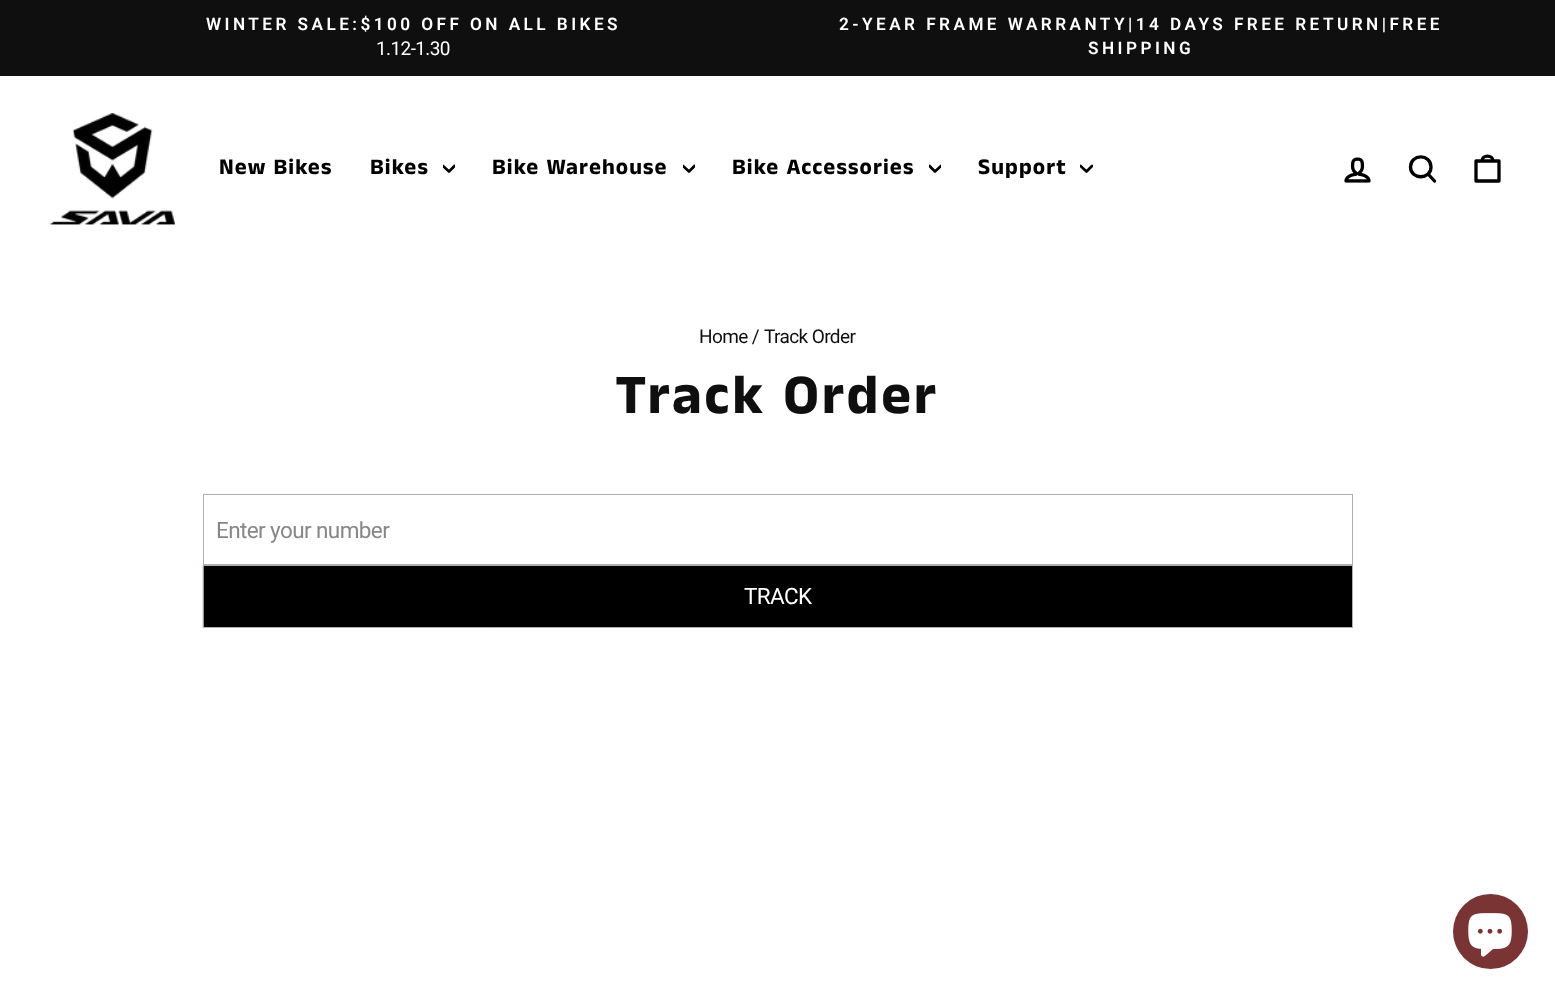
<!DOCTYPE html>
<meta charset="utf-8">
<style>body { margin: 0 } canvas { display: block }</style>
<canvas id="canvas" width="1555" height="995"></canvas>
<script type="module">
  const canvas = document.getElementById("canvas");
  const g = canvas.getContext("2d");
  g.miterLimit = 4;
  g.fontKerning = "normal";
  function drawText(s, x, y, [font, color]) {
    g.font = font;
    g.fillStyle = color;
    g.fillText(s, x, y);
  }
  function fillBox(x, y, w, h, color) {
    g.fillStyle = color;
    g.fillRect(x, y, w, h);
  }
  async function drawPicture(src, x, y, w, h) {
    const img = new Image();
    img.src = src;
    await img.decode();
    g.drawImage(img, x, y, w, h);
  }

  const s1 = ["600 17.2px Roboto", "#FFFFFF"];
  const s2 = ["19px Roboto", "#FFFFFF"];
  const s3 = ["bold 22.5px Anek Tamil", "#000000"];
  const s4 = ["19px Roboto", "#0F0F0F"];
  const s5 = ["bold 56.25px Anek Tamil", "#0F0F0F"];
  const s6 = ["22.5px Roboto", "#878787"];
  const s7 = ["22.5px Roboto", "#FFFFFF"];

  fillBox(0, 0, 1555, 995, "#FFFFFF");
  fillBox(0, 0, 1555, 76, "#0F0F0F");
  g.letterSpacing = "3.45px";
  drawText("WINTER SALE:$100 OFF ON ALL BIKES", 206, 30, s1);
  g.letterSpacing = "-0.6px";
  drawText("1.12-1.30", 376, 55, s2);
  g.letterSpacing = "3.45px";
  drawText("2-YEAR FRAME WARRANTY|14 DAYS FREE RETURN|FREE", 839, 30, s1);
  drawText("SHIPPING", 1088, 54, s1);
  g.fillStyle = "rgba(0, 0, 0, 0.2)";
  g.filter = "blur(0.5px)";
  g.beginPath();
  g.rect(0, 76, 1555, 187);
  g.fill();
  g.filter = "none";
  fillBox(0, 76, 1555, 187, "#FFFFFF");
  await drawPicture("pic1.png", 50, 113, 125, 112);
  g.letterSpacing = "1.1px";
  drawText("New Bikes", 219, 174, s3);
  drawText("Bikes", 370, 174, s3);
  g.save();
  g.beginPath();
  g.rect(443, 163, 12, 12);
  g.clip();
  g.beginPath();
  g.moveTo(443, 166);
  g.lineTo(449, 171.5);
  g.lineTo(454.5, 166);
  g.strokeStyle = "#000000";
  g.lineWidth = 2.7;
  g.lineCap = "round";
  g.lineJoin = "round";
  g.stroke();
  g.restore();
  drawText("Bike Warehouse", 492, 174, s3);
  g.save();
  g.beginPath();
  g.rect(683, 163, 12, 12);
  g.clip();
  g.beginPath();
  g.moveTo(683, 166);
  g.lineTo(689, 171.5);
  g.lineTo(694.5, 166);
  g.strokeStyle = "#000000";
  g.lineWidth = 2.7;
  g.lineCap = "round";
  g.lineJoin = "round";
  g.stroke();
  g.restore();
  drawText("Bike Accessories", 732, 174, s3);
  g.save();
  g.beginPath();
  g.rect(929, 163, 12, 12);
  g.clip();
  g.beginPath();
  g.moveTo(929.5, 166);
  g.lineTo(935, 171.5);
  g.lineTo(941, 166);
  g.strokeStyle = "#000000";
  g.lineWidth = 2.7;
  g.lineCap = "round";
  g.lineJoin = "round";
  g.stroke();
  g.restore();
  drawText("Support", 978, 174, s3);
  g.save();
  g.beginPath();
  g.rect(1080, 163, 13, 12);
  g.clip();
  g.beginPath();
  g.moveTo(1080.5, 166);
  g.lineTo(1086.5, 171.5);
  g.lineTo(1092, 166);
  g.strokeStyle = "#000000";
  g.lineWidth = 2.7;
  g.lineCap = "round";
  g.lineJoin = "round";
  g.stroke();
  g.restore();
  await drawPicture("pic2.png", 1344, 157, 27, 26);
  g.beginPath();
  g.moveTo(1431, 167);
  g.bezierCurveTo(1431, 180, 1410.5, 180, 1410.5, 167);
  g.bezierCurveTo(1410.5, 153.5, 1431, 153.5, 1431, 167);
  g.closePath();
  g.moveTo(1434.5, 181);
  g.lineTo(1428, 174);
  g.strokeStyle = "#000000";
  g.lineWidth = 3.3;
  g.lineCap = "round";
  g.lineJoin = "round";
  g.stroke();
  g.beginPath();
  g.moveTo(1476, 161);
  g.lineTo(1499, 161);
  g.lineTo(1499, 181);
  g.lineTo(1476, 181);
  g.closePath();
  g.moveTo(1482, 161);
  g.bezierCurveTo(1482, 154.5, 1493, 154.5, 1493, 161);
  g.stroke();
  g.letterSpacing = "-0.6px";
  drawText("Home /", 699, 343, s4);
  drawText("Track Order", 764, 343, s4);
  g.letterSpacing = "2.75px";
  drawText("Track Order", 615, 413, s5);
  g.strokeStyle = "#B4ADAD";
  g.lineWidth = 1;
  g.lineJoin = "miter";
  g.strokeRect(203.5, 494.5, 1149, 70);
  g.letterSpacing = "-0.6px";
  drawText("Enter your number", 216, 538, s6);
  g.fillStyle = "#000000";
  g.beginPath();
  g.rect(203.5, 565.5, 1149, 62);
  g.fill();
  g.stroke();
  drawText("TRACK", 744, 604, s7);
  g.fillStyle = "#7B3434";
  g.beginPath();
  g.arc(1490.5, 931.5, 37.5, 0, Math.PI * 2);
  g.fill();
  await drawPicture("pic3.png", 1468, 913, 44, 44);
</script>
